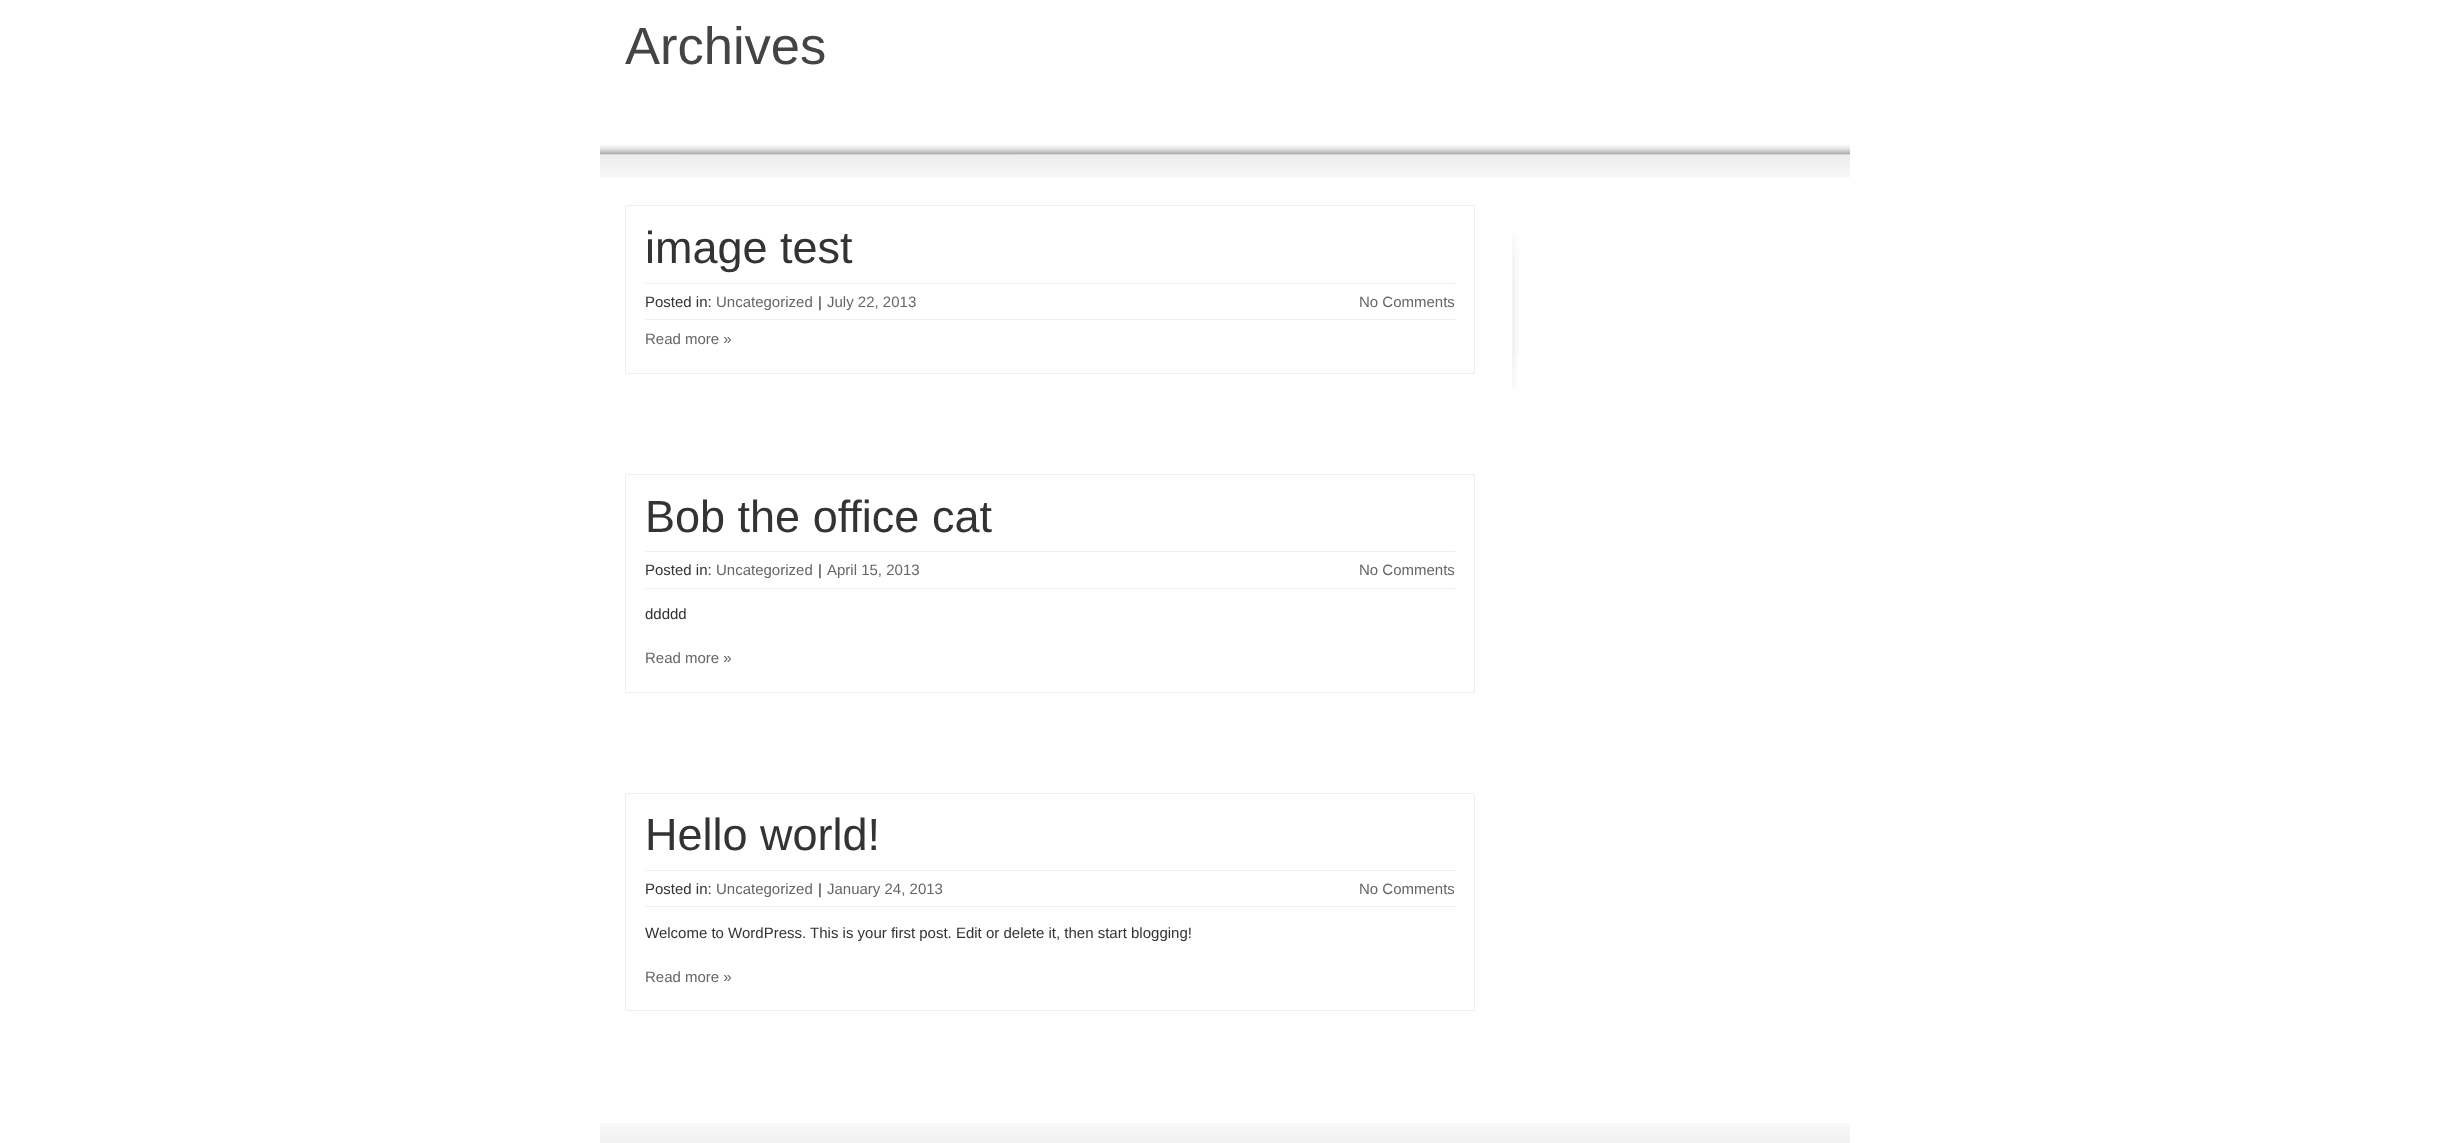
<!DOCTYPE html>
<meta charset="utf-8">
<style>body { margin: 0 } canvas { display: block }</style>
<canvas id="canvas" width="2449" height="1143"></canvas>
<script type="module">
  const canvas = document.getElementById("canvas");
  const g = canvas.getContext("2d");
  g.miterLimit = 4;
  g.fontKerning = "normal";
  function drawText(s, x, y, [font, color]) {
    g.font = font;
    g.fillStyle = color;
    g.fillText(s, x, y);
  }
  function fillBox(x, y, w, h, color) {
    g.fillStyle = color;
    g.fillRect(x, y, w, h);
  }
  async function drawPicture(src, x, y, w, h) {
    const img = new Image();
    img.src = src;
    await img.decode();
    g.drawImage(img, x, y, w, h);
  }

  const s1 = ["52.5px Liberation Sans", "#444444"];
  const s2 = ["45px Liberation Sans", "#333333"];
  const s3 = ["15px Liberation Sans", "#333333"];
  const s4 = ["15px Liberation Sans", "#666666"];

  fillBox(0, 0, 2449, 1143, "#FFFFFF");
  drawText("Archives", 625, 64, s1);
  await drawPicture("pic1.png", 600, 145, 1250, 10);
  await drawPicture("pic2.png", 600, 154, 1250, 24);
  g.beginPath();
  g.roundRect(625.5, 205.5, 849, 168, 0.5);
  g.strokeStyle = "#EEEEEE";
  g.stroke();
  drawText("image test", 645, 263, s2);
  fillBox(645, 283, 810, 1, "#EEEEEE");
  fillBox(645, 319, 810, 1, "#EEEEEE");
  drawText("Posted in:", 645, 307, s3);
  drawText("Uncategorized", 716, 307, s4);
  drawText("|", 818, 307, s3);
  drawText("July 22, 2013", 827, 307, s4);
  drawText("No Comments", 1359, 307, s4);
  drawText("Read more »", 645, 344, s4);
  g.beginPath();
  g.roundRect(625.5, 474.5, 849, 218, 0.5);
  g.stroke();
  drawText("Bob the office cat", 645, 532, s2);
  fillBox(645, 551, 810, 1, "#EEEEEE");
  fillBox(645, 588, 810, 1, "#EEEEEE");
  drawText("Posted in:", 645, 575, s3);
  drawText("Uncategorized", 716, 575, s4);
  drawText("|", 818, 575, s3);
  drawText("April 15, 2013", 827, 575, s4);
  drawText("No Comments", 1359, 575, s4);
  drawText("ddddd", 645, 619, s3);
  drawText("Read more »", 645, 663, s4);
  g.beginPath();
  g.roundRect(625.5, 793.5, 849, 217, 0.5);
  g.stroke();
  drawText("Hello world!", 645, 850, s2);
  fillBox(645, 870, 810, 1, "#EEEEEE");
  fillBox(645, 906, 810, 1, "#EEEEEE");
  drawText("Posted in:", 645, 894, s3);
  drawText("Uncategorized", 716, 894, s4);
  drawText("|", 818, 894, s3);
  drawText("January 24, 2013", 827, 894, s4);
  drawText("No Comments", 1359, 894, s4);
  drawText("Welcome to WordPress. This is your first post. Edit or delete it, then start blogging!", 645, 938, s3);
  drawText("Read more »", 645, 982, s4);
  await drawPicture("pic3.png", 1512, 234, 7, 123);
  await drawPicture("pic4.png", 1512, 357, 5, 33);
  await drawPicture("pic5.png", 600, 1123, 1250, 20);
</script>
